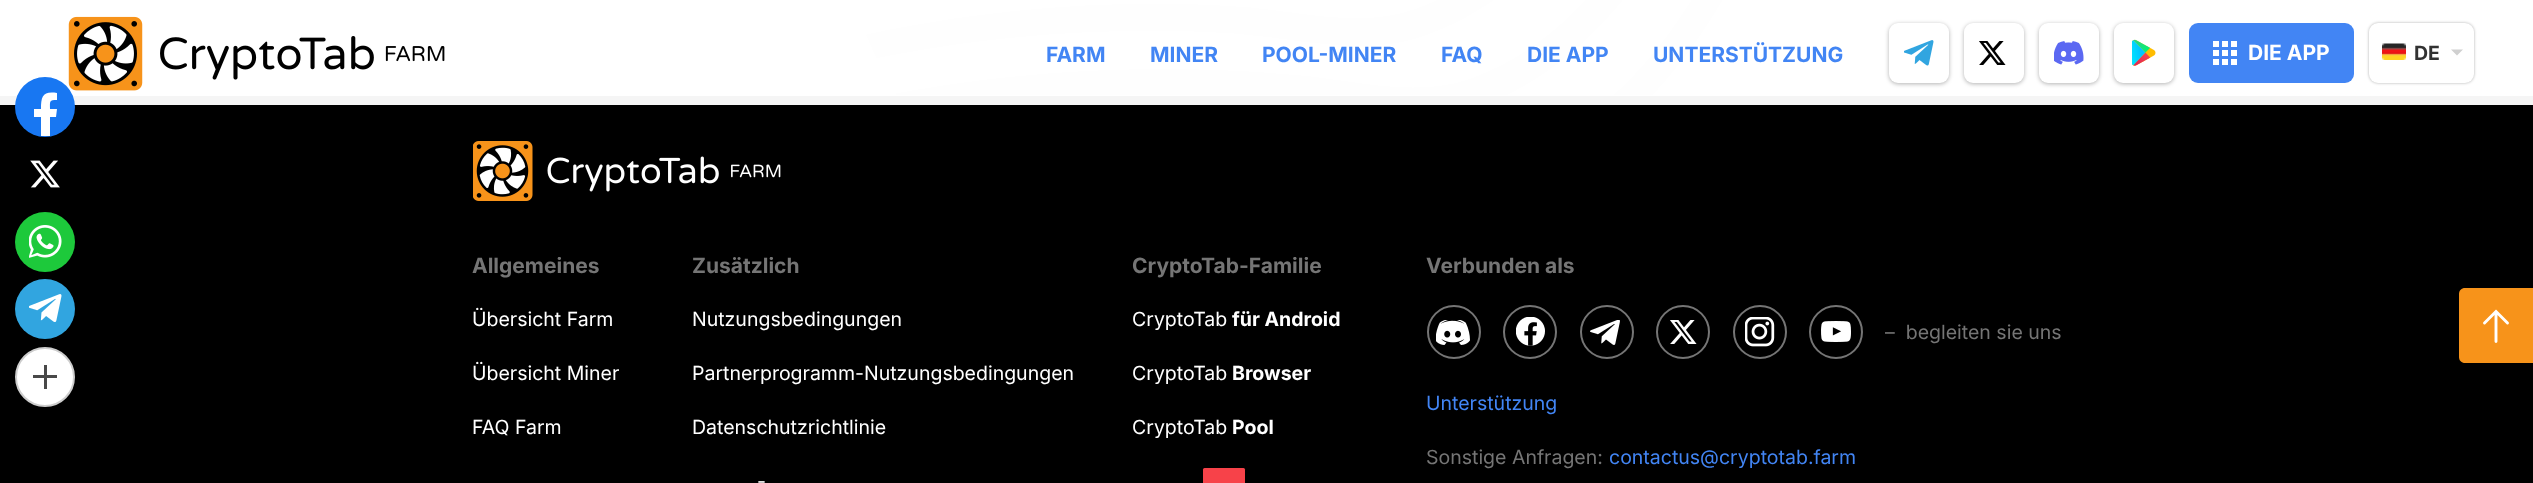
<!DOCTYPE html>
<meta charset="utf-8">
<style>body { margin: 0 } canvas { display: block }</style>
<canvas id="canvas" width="2533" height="483"></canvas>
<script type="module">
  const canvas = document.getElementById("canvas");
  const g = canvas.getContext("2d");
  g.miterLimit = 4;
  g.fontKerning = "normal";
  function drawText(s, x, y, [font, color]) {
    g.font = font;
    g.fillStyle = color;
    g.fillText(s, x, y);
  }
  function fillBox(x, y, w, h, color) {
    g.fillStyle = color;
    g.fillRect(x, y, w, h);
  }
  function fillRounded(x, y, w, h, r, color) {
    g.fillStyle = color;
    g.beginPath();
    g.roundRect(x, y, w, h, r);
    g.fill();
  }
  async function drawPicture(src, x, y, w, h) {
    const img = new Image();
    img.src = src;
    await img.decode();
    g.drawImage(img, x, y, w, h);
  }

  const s1 = ["bold 21px Inter", "#4285F4"];
  const s2 = ["bold 21px Inter", "#FFFFFF"];
  const s3 = ["bold 19.5px Inter", "#323232"];
  const s4 = ["bold 21px Inter", "#757575"];
  const s5 = ["19.5px Inter", "#FFFFFF"];
  const s6 = ["bold 19.5px Inter", "#FFFFFF"];
  const s7 = ["19.5px Inter", "#757575"];
  const s8 = ["19.5px Inter", "#4285F4"];

  fillBox(0, 0, 2533, 483, "#000000");
  fillBox(0, 96, 2533, 9, "#F5F5F5");
  fillBox(0, 0, 2533, 96, "#FFFFFF");
  await drawPicture("pic1.png", 405, 0, 1766, 96);
  await drawPicture("pic2.png", 68, 16, 377, 75);
  drawText("FARM", 1046, 62, s1);
  drawText("MINER", 1150, 62, s1);
  drawText("POOL-MINER", 1262, 62, s1);
  drawText("FAQ", 1441, 62, s1);
  drawText("DIE APP", 1527, 62, s1);
  drawText("UNTERSTÜTZUNG", 1653, 62, s1);
  g.fillStyle = "rgba(0, 0, 0, 0.3)";
  g.filter = "blur(2px)";
  g.beginPath();
  g.roundRect(1889, 24, 60, 60, 9);
  g.fill();
  g.filter = "none";
  fillRounded(1889, 23, 60, 60, 9, "#FFFFFF");
  await drawPicture("pic3.png", 1904, 40, 30, 26);
  g.fillStyle = "rgba(0, 0, 0, 0.3)";
  g.filter = "blur(2px)";
  g.beginPath();
  g.roundRect(1964, 24, 60, 60, 9);
  g.fill();
  g.filter = "none";
  fillRounded(1964, 23, 60, 60, 9, "#FFFFFF");
  await drawPicture("pic4.png", 1979, 41, 27, 24);
  g.fillStyle = "rgba(0, 0, 0, 0.3)";
  g.filter = "blur(2px)";
  g.beginPath();
  g.roundRect(2039, 24, 60, 60, 9);
  g.fill();
  g.filter = "none";
  fillRounded(2039, 23, 60, 60, 9, "#FFFFFF");
  await drawPicture("pic5.png", 2054, 41, 30, 24);
  g.fillStyle = "rgba(0, 0, 0, 0.3)";
  g.filter = "blur(2px)";
  g.beginPath();
  g.roundRect(2114, 24, 60, 60, 9);
  g.fill();
  g.filter = "none";
  fillRounded(2114, 23, 60, 60, 9, "#FFFFFF");
  await drawPicture("pic6.png", 2132, 39, 24, 27);
  fillRounded(2189, 23, 165, 60, 9, "#4285F4");
  await drawPicture("pic7.png", 2213, 41, 24, 24);
  drawText("DIE APP", 2248, 60, s2);
  g.fillStyle = "rgba(0, 0, 0, 0.3)";
  g.filter = "blur(1.5px)";
  g.beginPath();
  g.roundRect(2369, 23, 105, 60, 9);
  g.fill();
  g.filter = "none";
  fillRounded(2369, 23, 105, 60, 9, "#FFFFFF");
  await drawPicture("pic8.png", 2382, 43, 24, 17);
  drawText("DE", 2414, 60, s3);
  g.fillStyle = "#D0D0D0";
  g.beginPath();
  g.moveTo(2451, 49.5);
  g.lineTo(2463, 49.5);
  g.lineTo(2457, 55.5);
  g.closePath();
  g.fill();
  g.fillStyle = "#1877F2";
  g.beginPath();
  g.arc(45, 107, 30, 0, Math.PI * 2);
  g.fill();
  g.fillStyle = "#FFFFFF";
  g.beginPath();
  g.moveTo(56, 117);
  g.lineTo(57, 109);
  g.lineTo(50, 109);
  g.bezierCurveTo(50, 101, 49, 100, 57, 100);
  g.lineTo(57, 93);
  g.bezierCurveTo(43, 91, 41, 96, 41, 109);
  g.lineTo(34, 109);
  g.lineTo(34, 117);
  g.lineTo(41, 117);
  g.lineTo(41, 136);
  g.lineTo(50, 136);
  g.lineTo(50, 117);
  g.closePath();
  g.fill("evenodd");
  await drawPicture("pic9.png", 30, 160, 30, 28);
  g.fillStyle = "#1DC93B";
  g.beginPath();
  g.arc(45, 242, 30, 0, Math.PI * 2);
  g.fill();
  await drawPicture("pic10.png", 29, 225, 33, 33);
  g.fillStyle = "#31A5E0";
  g.beginPath();
  g.arc(45, 309, 30, 0, Math.PI * 2);
  g.fill();
  await drawPicture("pic11.png", 29, 294, 33, 28);
  g.fillStyle = "#FFFFFF";
  g.beginPath();
  g.arc(45, 377, 29, 0, Math.PI * 2);
  g.fill();
  g.strokeStyle = "#CDCDCD";
  g.lineWidth = 2;
  g.stroke();
  fillBox(44, 365, 3, 24, "#494949");
  fillBox(33, 375, 24, 3, "#494949");
  await drawPicture("pic12.png", 473, 141, 308, 60);
  drawText("Allgemeines", 472, 273, s4);
  drawText("Übersicht Farm", 472, 326, s5);
  drawText("Übersicht Miner", 472, 380, s5);
  drawText("FAQ Farm", 472, 434, s5);
  drawText("Zusätzlich", 692, 273, s4);
  drawText("Nutzungsbedingungen", 692, 326, s5);
  drawText("Partnerprogramm-Nutzungsbedingungen", 692, 380, s5);
  drawText("Datenschutzrichtlinie", 692, 434, s5);
  drawText("-", 757, 488, s5);
  drawText("CryptoTab-Familie", 1132, 273, s4);
  drawText("CryptoTab", 1132, 326, s5);
  drawText("für Android", 1232, 326, s6);
  drawText("CryptoTab", 1132, 380, s5);
  drawText("Browser", 1232, 380, s6);
  drawText("CryptoTab", 1132, 434, s5);
  drawText("Pool", 1232, 434, s6);
  fillRounded(1203, 468, 42, 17, 1.5, "#F74249");
  drawText("Verbunden als", 1426, 273, s4);
  g.beginPath();
  g.arc(1454, 332, 26, 0, Math.PI * 2);
  g.strokeStyle = "#757575";
  g.stroke();
  await drawPicture("pic13.png", 1436, 320, 34, 25);
  g.beginPath();
  g.arc(1530, 332, 26, 0, Math.PI * 2);
  g.stroke();
  await drawPicture("pic14.png", 1516, 317, 29, 29);
  g.beginPath();
  g.arc(1607, 332, 26, 0, Math.PI * 2);
  g.stroke();
  await drawPicture("pic15.png", 1590, 320, 30, 25);
  g.beginPath();
  g.arc(1683, 332, 26, 0, Math.PI * 2);
  g.stroke();
  await drawPicture("pic16.png", 1670, 320, 27, 24);
  g.beginPath();
  g.arc(1760, 332, 26, 0, Math.PI * 2);
  g.stroke();
  await drawPicture("pic17.png", 1745, 317, 30, 30);
  g.beginPath();
  g.arc(1836, 332, 26, 0, Math.PI * 2);
  g.stroke();
  await drawPicture("pic18.png", 1821, 321, 30, 21);
  drawText("–  begleiten sie uns", 1885, 339, s7);
  drawText("Unterstützung", 1426, 410, s8);
  drawText("Sonstige Anfragen:", 1426, 464, s7);
  drawText("contactus@cryptotab.farm", 1609, 464, s8);
  g.fillStyle = "#F7931A";
  g.beginPath();
  g.moveTo(2465, 288);
  g.lineTo(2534, 288);
  g.lineTo(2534, 363);
  g.lineTo(2465, 363);
  g.bezierCurveTo(2461.5, 363, 2459, 360.5, 2459, 357);
  g.lineTo(2459, 294);
  g.bezierCurveTo(2459, 290.5, 2461.5, 288, 2465, 288);
  g.closePath();
  g.fill();
  g.beginPath();
  g.moveTo(2484.5, 323);
  g.lineTo(2496, 311.5);
  g.lineTo(2507.5, 323);
  g.moveTo(2496, 313);
  g.lineTo(2496, 341.5);
  g.strokeStyle = "#FFFFFF";
  g.lineWidth = 2.9;
  g.lineCap = "round";
  g.stroke();
</script>
